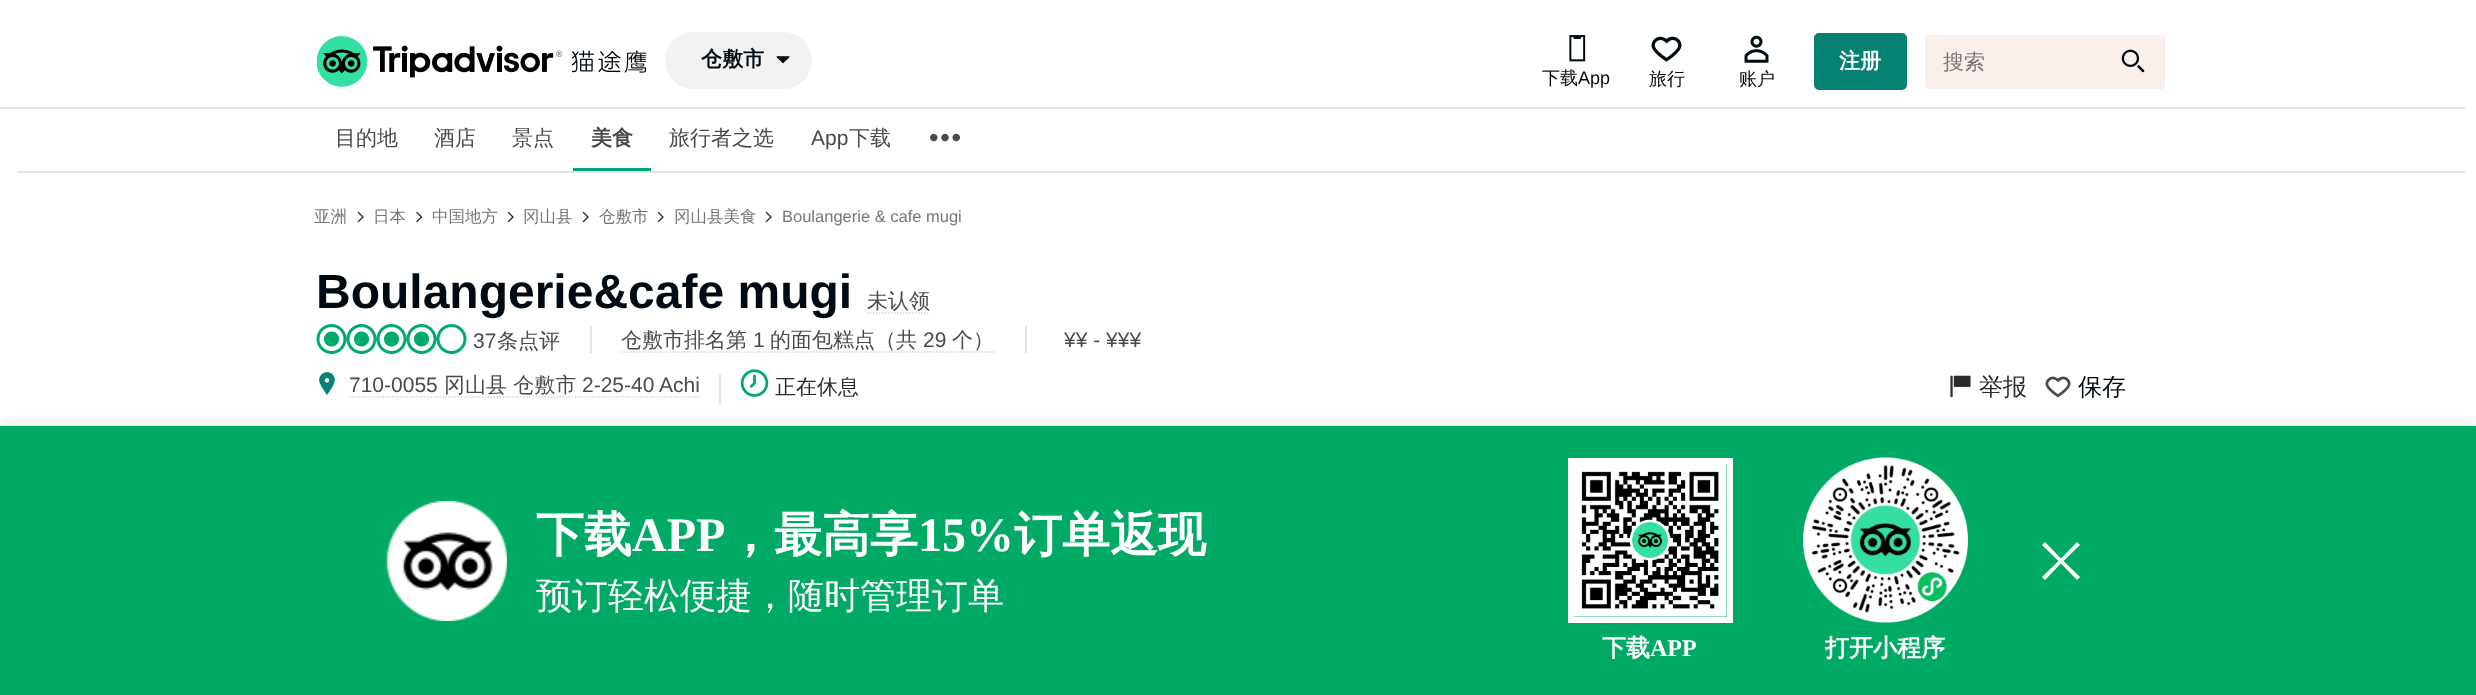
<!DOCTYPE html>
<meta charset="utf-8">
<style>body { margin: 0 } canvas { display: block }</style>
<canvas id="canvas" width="2476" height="695"></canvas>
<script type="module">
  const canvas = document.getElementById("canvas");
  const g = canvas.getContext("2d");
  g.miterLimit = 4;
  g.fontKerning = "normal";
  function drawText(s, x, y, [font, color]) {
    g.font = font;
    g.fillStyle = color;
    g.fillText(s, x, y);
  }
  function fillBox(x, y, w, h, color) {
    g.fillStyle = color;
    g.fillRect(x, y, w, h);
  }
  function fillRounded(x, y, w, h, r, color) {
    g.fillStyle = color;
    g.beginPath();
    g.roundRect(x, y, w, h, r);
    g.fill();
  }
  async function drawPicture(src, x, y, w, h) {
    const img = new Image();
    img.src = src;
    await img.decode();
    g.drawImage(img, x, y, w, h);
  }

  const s1 = ["bold 21px WenQuanYi Zen Hei", "#000A12"];
  const s2 = ["bold 21px WenQuanYi Zen Hei", "#FFFFFF"];
  const s3 = ["500 18px WenQuanYi Zen Hei", "#000A12"];
  const s4 = ["18px Liberation Sans", "#000A12"];
  const s5 = ["500 21px WenQuanYi Zen Hei", "#767676"];
  const s6 = ["500 21px WenQuanYi Zen Hei", "#4A4A4A"];
  const s7 = ["bold 21px WenQuanYi Zen Hei", "#4A4A4A"];
  const s8 = ["21px Liberation Sans", "#4A4A4A"];
  const s9 = ["500 16.5px WenQuanYi Zen Hei", "#767676"];
  const s10 = ["16.5px Liberation Sans", "#767676"];
  const s11 = ["bold 48px Liberation Sans", "#000A12"];
  const s12 = ["500 21px WenQuanYi Zen Hei", "#2C2C2C"];
  const s13 = ["500 24px WenQuanYi Zen Hei", "#2C2C2C"];
  const s14 = ["500 24px WenQuanYi Zen Hei", "#000A12"];
  const s15 = ["bold 48px WenQuanYi Zen Hei", "#FFFFFF"];
  const s16 = ["bold 48px Liberation Serif", "#FFFFFF"];
  const s17 = ["500 36px WenQuanYi Zen Hei", "#FFFFFF"];
  const s18 = ["bold 24px WenQuanYi Zen Hei", "#FFFFFF"];
  const s19 = ["bold 24px Liberation Serif", "#FFFFFF"];

  fillBox(0, 0, 2476, 695, "#FFFFFF");
  await drawPicture("pic1.png", 317, 36, 330, 51);
  fillRounded(665, 32, 147, 57, 28.5, "#F2F2F2");
  drawText("仓敷市", 701, 66, s1);
  await drawPicture("pic2.png", 776, 56, 14, 8);
  g.fillStyle = "#078171";
  g.beginPath();
  g.roundRect(1815, 34, 91, 55, 4);
  g.fill();
  g.strokeStyle = "#078171";
  g.lineWidth = 2;
  g.stroke();
  drawText("注册", 1839, 68, s2);
  await drawPicture("pic3.png", 1569, 35, 17, 27);
  drawText("下载", 1542, 84, s3);
  drawText("App", 1578, 84, s4);
  await drawPicture("pic4.png", 1651, 36, 31, 26);
  drawText("旅行", 1649, 85, s3);
  await drawPicture("pic5.png", 1744, 35, 25, 28);
  drawText("账户", 1739, 85, s3);
  fillRounded(1925, 35, 240, 54, 3, "#F9F0EC");
  drawText("搜索", 1943, 69, s5);
  await drawPicture("pic6.png", 2121, 49, 24, 24);
  fillBox(0, 107, 2465, 2, "#E5E5E5");
  fillBox(17, 171, 2448, 2, "#E5E5E5");
  drawText("目的地", 335, 145, s6);
  drawText("酒店", 434, 145, s6);
  drawText("景点", 512, 145, s6);
  fillBox(573, 168, 78, 3, "#00A680");
  drawText("美食", 591, 145, s7);
  drawText("旅行者之选", 669, 145, s6);
  drawText("App", 811, 145, s8);
  drawText("下载", 849, 145, s6);
  await drawPicture("pic7.png", 930, 133, 30, 9);
  drawText("亚洲", 314, 222, s9);
  await drawPicture("pic8.png", 357, 211, 7, 12);
  drawText("日本", 373, 222, s9);
  await drawPicture("pic9.png", 416, 211, 7, 12);
  drawText("中国地方", 432, 222, s9);
  await drawPicture("pic8.png", 507, 211, 7, 12);
  drawText("冈山县", 523, 222, s9);
  await drawPicture("pic8.png", 582, 211, 7, 12);
  drawText("仓敷市", 599, 222, s9);
  await drawPicture("pic8.png", 657, 211, 7, 12);
  drawText("冈山县美食", 674, 222, s9);
  await drawPicture("pic8.png", 765, 211, 7, 12);
  drawText("Boulangerie & cafe mugi", 782, 222, s10);
  drawText("Boulangerie&cafe mugi", 316, 308, s11);
  drawText("未认领", 867, 308, s6);
  g.beginPath();
  g.moveTo(867, 313);
  g.lineTo(930, 313);
  g.strokeStyle = "#D6D6D6";
  g.lineWidth = 1.5;
  g.setLineDash([1.5, 1.5]);
  g.stroke();
  await drawPicture("pic10.png", 316, 324, 151, 30);
  drawText("37", 473, 348, s8);
  drawText("条点评", 497, 348, s6);
  fillBox(590, 326, 2, 27, "#E5E5E5");
  drawText("仓敷市排名第", 621, 347, s6);
  drawText("1", 753, 347, s8);
  drawText("的面包糕点（共", 770, 347, s6);
  g.beginPath();
  g.moveTo(621, 352);
  g.lineTo(994.5, 352);
  g.stroke();
  drawText("29", 923, 347, s8);
  drawText("个）", 952, 347, s6);
  fillBox(1025, 326, 2, 27, "#E5E5E5");
  drawText("¥¥ - ¥¥¥", 1064, 347, s8);
  await drawPicture("pic11.png", 319, 372, 16, 23);
  drawText("710-0055", 349, 392, s8);
  g.beginPath();
  g.moveTo(349.5, 397);
  g.lineTo(700.5, 397);
  g.stroke();
  drawText("冈山县 仓敷市", 444, 392, s6);
  drawText("2-25-40 Achi", 582, 392, s8);
  fillBox(719, 374, 2, 30, "#E5E5E5");
  await drawPicture("pic12.png", 740, 369, 29, 28);
  drawText("正在休息", 775, 394, s12);
  await drawPicture("pic13.png", 1950, 375, 21, 23);
  drawText("举报", 1979, 395, s13);
  await drawPicture("pic14.png", 2045, 376, 26, 22);
  drawText("保存", 2078, 395, s14);
  fillBox(0, 425, 2476, 1, "#F2F2F2");
  g.fillStyle = "rgba(0, 0, 0, 0.08)";
  g.filter = "blur(6px)";
  g.beginPath();
  g.rect(0, 423, 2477, 270);
  g.fill();
  g.filter = "none";
  fillBox(0, 426, 2476, 269, "#00A964");
  await drawPicture("pic15.png", 385, 501, 122, 120);
  drawText("下载", 536, 551, s15);
  drawText("APP", 632, 551, s16);
  drawText("，最高享", 726, 551, s15);
  drawText("15%", 918, 551, s16);
  drawText("订单返现", 1014, 551, s15);
  drawText("预订轻松便捷，随时管理订单", 536, 608, s17);
  g.beginPath();
  g.moveTo(2077, 542);
  g.lineTo(2080, 545);
  g.lineTo(2063.5, 561);
  g.lineTo(2080, 577);
  g.lineTo(2077, 580);
  g.lineTo(2061, 563.5);
  g.lineTo(2045, 580);
  g.lineTo(2042, 577);
  g.lineTo(2058.5, 561);
  g.lineTo(2042, 545);
  g.lineTo(2045, 542);
  g.lineTo(2061, 558.5);
  g.closePath();
  g.fill();
  g.strokeStyle = "#FFFFFF";
  g.lineWidth = 6;
  g.setLineDash([]);
  g.strokeRect(1571, 461, 159, 159);
  await drawPicture("pic16.png", 1574, 464, 153, 153);
  drawText("下载", 1602, 656, s18);
  drawText("APP", 1650, 656, s19);
  await drawPicture("pic17.png", 1803, 457, 165, 166);
  drawText("打开小程序", 1825, 656, s18);
</script>
